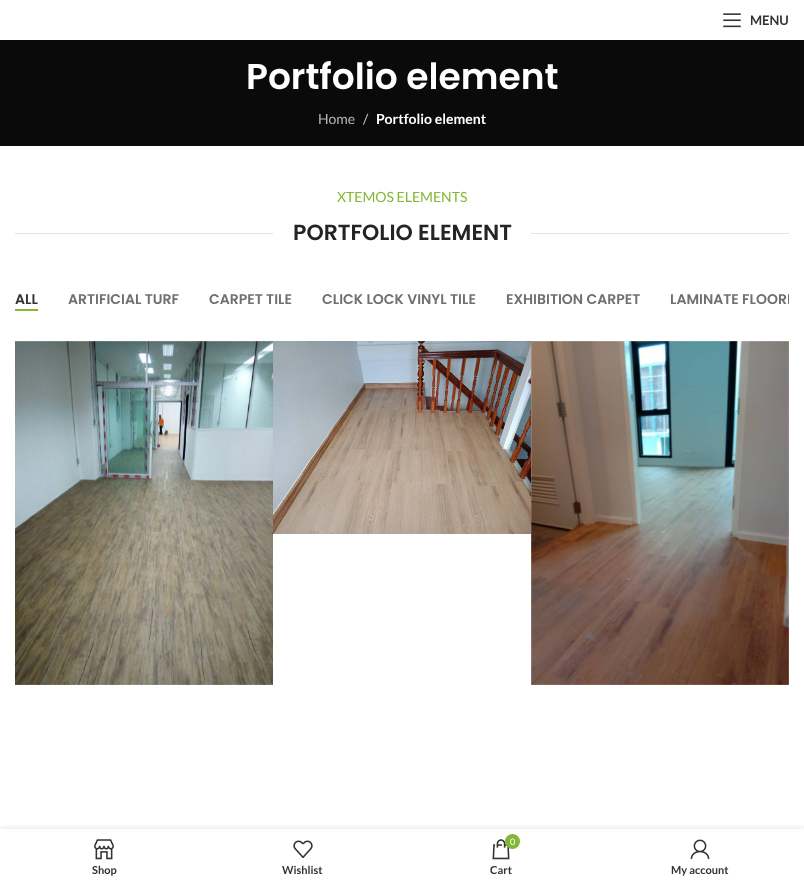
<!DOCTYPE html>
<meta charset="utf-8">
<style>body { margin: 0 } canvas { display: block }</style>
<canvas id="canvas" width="804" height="884"></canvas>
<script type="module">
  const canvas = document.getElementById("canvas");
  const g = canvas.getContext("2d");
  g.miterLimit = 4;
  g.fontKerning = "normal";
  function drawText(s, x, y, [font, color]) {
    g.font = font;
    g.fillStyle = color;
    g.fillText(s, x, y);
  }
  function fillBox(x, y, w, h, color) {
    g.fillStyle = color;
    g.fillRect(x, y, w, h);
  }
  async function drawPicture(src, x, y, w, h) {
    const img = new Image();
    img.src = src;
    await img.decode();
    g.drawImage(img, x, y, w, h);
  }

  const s1 = ["bold 13px Lato", "#333333"];
  const s2 = ["600 36px Poppins", "#FFFFFF"];
  const s3 = ["14px Lato", "#B6B6B6"];
  const s4 = ["14px Lato", "#CECECE"];
  const s5 = ["bold 14px Lato", "#FFFFFF"];
  const s6 = ["14px Lato", "#83B735"];
  const s7 = ["600 22px Poppins", "#242424"];
  const s8 = ["600 14px Poppins", "#333333"];
  const s9 = ["600 14px Poppins", "#707070"];
  const s10 = ["bold 11px Lato", "#333333"];
  const s11 = ["9px Lato", "#FFFFFF"];

  fillBox(0, 0, 804, 884, "#FFFFFF");
  await drawPicture("pic1.png", 723, 13, 18, 15);
  drawText("MENU", 750, 25, s1);
  fillBox(0, 40, 804, 106, "#0A0A0A");
  drawText("Portfolio element", 246, 89, s2);
  drawText("Home", 318, 124, s3);
  drawText("/", 363, 124, s4);
  drawText("Portfolio element", 376, 124, s5);
  drawText("XTEMOS ELEMENTS", 337, 202, s6);
  fillBox(15, 233, 258, 1, "#E4E4E4");
  drawText("PORTFOLIO ELEMENT", 293, 240, s7);
  fillBox(531, 233, 258, 1, "#E4E4E4");
  drawText("ALL", 15, 304, s8);
  fillBox(15, 309, 23, 2, "#83B735");
  drawText("ARTIFICIAL TURF", 68, 304, s9);
  drawText("CARPET TILE", 209, 304, s9);
  drawText("CLICK LOCK VINYL TILE", 322, 304, s9);
  drawText("EXHIBITION CARPET", 506, 304, s9);
  g.save();
  g.beginPath();
  g.rect(15, 279, 774, 42);
  g.clip();
  drawText("LAMINATE FLOORI", 670, 304, s9);
  g.restore();
  await drawPicture("pic2.png", 15, 341, 258, 344);
  await drawPicture("pic3.png", 273, 341, 258, 193);
  await drawPicture("pic4.png", 531, 341, 258, 344);
  g.save();
  g.beginPath();
  g.rect(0, 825, 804, 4);
  g.clip();
  g.fillStyle = "rgba(0, 0, 0, 0.12)";
  g.filter = "blur(4.5px)";
  g.beginPath();
  g.rect(0, 829, 804, 55);
  g.fill();
  g.filter = "none";
  g.restore();
  await drawPicture("pic5.png", 94, 839, 20, 21);
  drawText("Shop", 92, 874, s10);
  await drawPicture("pic6.png", 293, 840, 20, 18);
  drawText("Wishlist", 282, 874, s10);
  await drawPicture("pic7.png", 492, 839, 18, 21);
  g.fillStyle = "#83B735";
  g.beginPath();
  g.arc(512.5, 841.5, 7.5, 0, Math.PI * 2);
  g.fill();
  drawText("0", 510, 845, s11);
  drawText("Cart", 490, 874, s10);
  await drawPicture("pic8.png", 690, 839, 20, 20);
  drawText("My account", 671, 874, s10);
</script>
